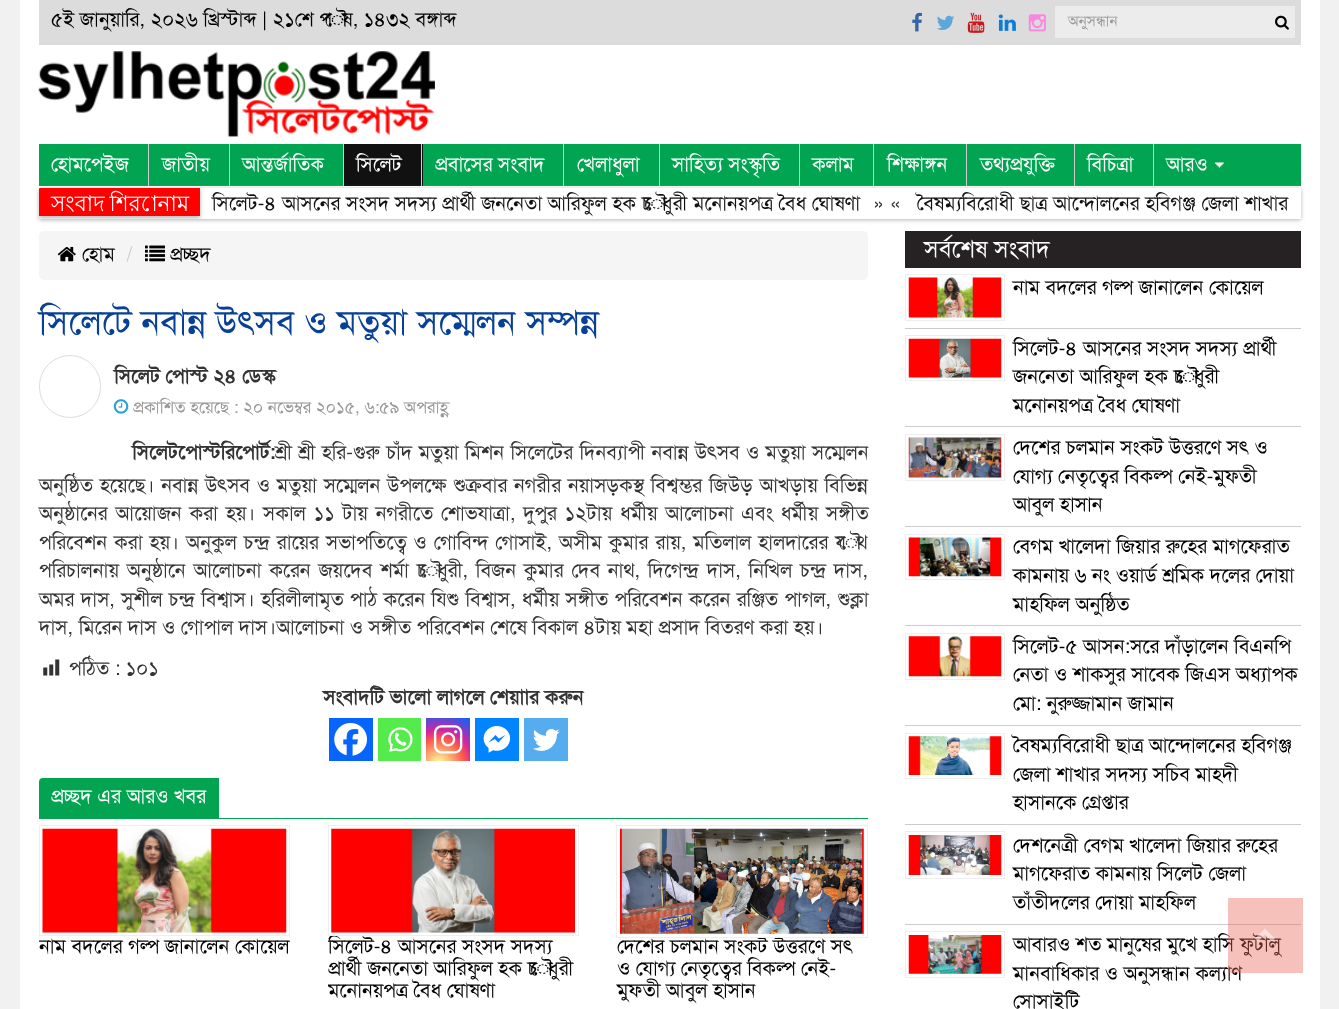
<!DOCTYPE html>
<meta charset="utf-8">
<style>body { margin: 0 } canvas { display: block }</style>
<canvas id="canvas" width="1339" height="1009"></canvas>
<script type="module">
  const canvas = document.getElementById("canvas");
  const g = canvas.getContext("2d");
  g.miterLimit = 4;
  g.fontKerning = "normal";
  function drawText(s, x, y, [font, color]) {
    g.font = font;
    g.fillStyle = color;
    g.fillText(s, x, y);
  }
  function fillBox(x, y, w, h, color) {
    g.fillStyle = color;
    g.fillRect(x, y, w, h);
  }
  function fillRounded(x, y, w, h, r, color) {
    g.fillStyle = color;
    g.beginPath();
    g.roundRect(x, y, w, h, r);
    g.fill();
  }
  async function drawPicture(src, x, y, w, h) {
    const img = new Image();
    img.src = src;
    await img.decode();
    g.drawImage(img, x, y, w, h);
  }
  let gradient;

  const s1 = ["20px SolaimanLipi", "#000000"];
  const s2 = ["15px SolaimanLipi", "#999999"];
  const s3 = ["20px SolaimanLipi", "#FFFFFF"];
  const s4 = ["21.75px Lohit Bengali", "#FFFFFF"];
  const s5 = ["20px SolaimanLipi", "#111111"];
  const s6 = ["20px SolaimanLipi", "#333333"];
  const s7 = ["20px SolaimanLipi", "#CCCCCC"];
  const s8 = ["35px SolaimanLipi", "#074097"];
  const s9 = ["bold 20px SolaimanLipi", "#333333"];
  const s10 = ["17px SolaimanLipi", "#999999"];
  const s11 = ["24px SolaimanLipi", "#FFFFFF"];

  fillBox(0, 0, 1339, 1009, "#F1F1F1");
  fillBox(20, 0, 1300, 1009, "#FFFFFF");
  fillBox(39, 0, 1262, 45, "#DCDCDC");
  drawText("৫ই জানুয়ারি, ২০২৬ খ্রিস্টাব্দ | ২১শে পৌষ, ১৪৩২ বঙ্গাব্দ", 51, 26, s1);
  await drawPicture("pic1.png", 912, 12, 10, 20);
  await drawPicture("pic2.png", 937, 15, 18, 15);
  await drawPicture("pic3.png", 967, 12, 18, 21);
  await drawPicture("pic4.png", 998, 14, 18, 17);
  await drawPicture("pic5.png", 1028, 14, 18, 18);
  fillBox(1055, 6, 240, 32, "#ECECEC");
  drawText("অনুসন্ধান", 1068, 26, s2);
  await drawPicture("pic6.png", 1275, 15, 14, 15);
  await drawPicture("pic7.png", 38, 51, 397, 86);
  fillBox(39, 144, 1262, 42, "#01A551");
  fillBox(148, 144, 1, 42, "#CCCCCC");
  drawText("হোমপেইজ", 51, 171, s3);
  fillBox(229, 144, 1, 42, "#CCCCCC");
  drawText("জাতীয়", 162, 171, s3);
  fillBox(343, 144, 1, 42, "#CCCCCC");
  drawText("আন্তর্জাতিক", 242, 171, s3);
  fillBox(344, 144, 79, 42, "#111111");
  fillBox(421, 144, 1, 42, "#CCCCCC");
  drawText("সিলেট", 356, 171, s3);
  fillBox(563, 144, 1, 42, "#CCCCCC");
  drawText("প্রবাসের সংবাদ", 435, 171, s3);
  fillBox(659, 144, 1, 42, "#CCCCCC");
  drawText("খেলাধুলা", 577, 171, s3);
  fillBox(799, 144, 1, 42, "#CCCCCC");
  drawText("সাহিত্য সংস্কৃতি", 672, 171, s3);
  fillBox(873, 144, 1, 42, "#CCCCCC");
  drawText("কলাম", 812, 171, s3);
  fillBox(966, 144, 1, 42, "#CCCCCC");
  drawText("শিক্ষাঙ্গন", 887, 171, s3);
  fillBox(1074, 144, 1, 42, "#CCCCCC");
  drawText("তথ্যপ্রযুক্তি", 980, 171, s3);
  fillBox(1153, 144, 1, 42, "#CCCCCC");
  drawText("বিচিত্রা", 1087, 171, s3);
  await drawPicture("pic8.png", 1215, 162, 9, 6);
  drawText("আরও", 1166, 171, s3);
  g.fillStyle = "#B5B5B5";
  g.filter = "blur(2px)";
  g.beginPath();
  g.roundRect(39, 189, 1262, 31, 1);
  g.fill();
  g.filter = "none";
  fillRounded(39, 188, 1262, 31, 1, "#FFFFFF");
  g.save();
  g.beginPath();
  g.roundRect(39, 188, 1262, 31, 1);
  g.clip();
  g.fillStyle = "#B5B5B5";
  g.filter = "blur(2px)";
  g.beginPath();
  g.rect(39, 189, 161, 29);
  g.fill();
  g.filter = "none";
  g.restore();
  g.fillStyle = "#FF0000";
  g.beginPath();
  g.roundRect(39, 188, 161, 28, [1, 0, 0, 0]);
  g.fill();
  g.wordSpacing = "-1px";
  drawText("সংবাদ শিরোনাম", 51, 211, s4);
  g.wordSpacing = "0px";
  drawText("সিলেট-৪ আসনের সংসদ সদস্য প্রার্থী জননেতা আরিফুল হক চৌধুরী মনোনয়পত্র বৈধ ঘোষণা", 212, 210, s5);
  drawText("» «", 873, 210, s6);
  drawText("বৈষম্যবিরোধী ছাত্র আন্দোলনের হবিগঞ্জ জেলা শাখার", 917, 210, s5);
  fillRounded(39, 231, 829, 49, 5, "#F5F5F5");
  await drawPicture("pic9.png", 57, 246, 19, 16);
  drawText("হোম", 82, 261, s1);
  drawText("/", 126, 261, s7);
  await drawPicture("pic10.png", 145, 245, 20, 17);
  drawText("প্রচ্ছদ", 170, 261, s1);
  drawText("সিলেটে নবান্ন উৎসব ও মতুয়া সম্মেলন সম্পন্ন", 39, 334, s8);
  g.beginPath();
  g.roundRect(39.5, 355.5, 61, 62, 30.5);
  g.strokeStyle = "#DDDDDD";
  g.stroke();
  drawText("সিলেট পোস্ট ২৪ ডেস্ক", 114, 383, s9);
  await drawPicture("pic11.png", 113, 399, 16, 15);
  drawText("প্রকাশিত হয়েছে : ২০ নভেম্বর ২০১৫, ৬:৫৯ অপরাহ্ণ", 133, 413, s10);
  drawText("সিলেটপোস্টরিপোর্ট:", 132, 459, s9);
  g.wordSpacing = "0.75px";
  drawText("শ্রী শ্রী হরি-গুরু চাঁদ মতুয়া মিশন সিলেটের দিনব্যাপী নবান্ন উৎসব ও মতুয়া সম্মেলন", 275, 459, s6);
  g.wordSpacing = "1.25px";
  drawText("অনুষ্ঠিত হয়েছে। নবান্ন উৎসব ও মতুয়া সম্মেলন উপলক্ষে শুক্রবার নগরীর নয়াসড়কস্থ বিশ্বম্ভর জিউড় আখড়ায় বিভিন্ন", 39, 492, s6);
  g.wordSpacing = "2.25px";
  drawText("অনুষ্ঠানের আয়োজন করা হয়। সকাল ১১ টায় নগরীতে শোভযাত্রা, দুপুর ১২টায় ধর্মীয় আলোচনা এবং ধর্মীয় সঙ্গীত", 39, 520, s6);
  g.wordSpacing = "1.4px";
  drawText("পরিবেশন করা হয়। অনুকুল চন্দ্র রায়ের সভাপতিত্বে ও গোবিন্দ গোসাই, অসীম কুমার রায়, মতিলাল হালদারের যৌথ", 39, 549, s6);
  g.wordSpacing = "2.25px";
  drawText("পরিচালনায় অনুষ্ঠানে আলোচনা করেন জয়দেব শর্মা চৌধুরী, বিজন কুমার দেব নাথ, দিগেন্দ্র দাস, নিখিল চন্দ্র দাস,", 39, 577, s6);
  g.wordSpacing = "0.75px";
  drawText("অমর দাস, সুশীল চন্দ্র বিশ্বাস। হরিলীলামৃত পাঠ করেন যিশু বিশ্বাস, ধর্মীয় সঙ্গীত পরিবেশন করেন রঞ্জিত পাগল, শুক্লা", 39, 606, s6);
  g.wordSpacing = "0px";
  drawText("দাস, মিরেন দাস ও গোপাল দাস।আলোচনা ও সঙ্গীত পরিবেশন শেষে বিকাল ৪টায় মহা প্রসাদ বিতরণ করা হয়।", 39, 634, s6);
  await drawPicture("pic12.png", 43, 659, 17, 17);
  drawText("পঠিত : ১০১", 69, 675, s6);
  drawText("সংবাদটি ভালো লাগলে শেয়াার করুন", 323, 704, s9);
  fillBox(329, 718, 44, 43, "#0765FE");
  await drawPicture("pic13.png", 334, 723, 33, 33);
  fillBox(378, 718, 43, 43, "#55EB4C");
  await drawPicture("pic14.png", 388, 727, 25, 25);
  gradient = g.createRadialGradient(439, 764, 0, 439, 764, 56);
  gradient.addColorStop(0, "#FDF497");
  gradient.addColorStop(0.05, "#FDF497");
  gradient.addColorStop(0.45, "#FD5949");
  gradient.addColorStop(0.6, "#D6249F");
  gradient.addColorStop(0.9, "#285AEB");
  g.fillStyle = gradient;
  g.fillRect(426, 718, 44, 43);
  await drawPicture("pic15.png", 433, 725, 30, 29);
  fillBox(475, 718, 44, 43, "#0084FF");
  await drawPicture("pic16.png", 483, 726, 28, 27);
  fillBox(524, 718, 44, 43, "#55ACEE");
  await drawPicture("pic17.png", 533, 729, 27, 22);
  fillBox(39, 818, 829, 1, "#03A451");
  g.beginPath();
  g.roundRect(39, 778, 180, 40, [4, 0, 0, 0]);
  g.fill();
  drawText("প্রচ্ছদ এর আরও খবর", 51, 803, s3);
  g.strokeStyle = "#EEEEEE";
  g.strokeRect(39.5, 825.5, 250, 110);
  await drawPicture("pic18.png", 42, 828, 245, 105);
  g.save();
  g.beginPath();
  g.rect(39, 936, 251, 29);
  g.clip();
  drawText("নাম বদলের গল্প জানালেন কোয়েল", 39, 953, s1);
  g.restore();
  g.strokeRect(328.5, 825.5, 250, 110);
  await drawPicture("pic19.png", 331, 828, 244, 105);
  g.save();
  g.beginPath();
  g.rect(328, 936, 251, 73);
  g.clip();
  drawText("সিলেট-৪ আসনের সংসদ সদস্য", 328, 953, s1);
  drawText("প্রার্থী জননেতা আরিফুল হক চৌধুরী", 328, 975, s1);
  drawText("মনোনয়পত্র বৈধ ঘোষণা", 328, 997, s1);
  g.restore();
  g.strokeRect(616.5, 825.5, 251, 112);
  await drawPicture("pic20.png", 620, 828, 244, 106);
  g.save();
  g.beginPath();
  g.rect(616, 938, 252, 71);
  g.clip();
  drawText("দেশের চলমান সংকট উত্তরণে সৎ", 617, 953, s1);
  g.restore();
  drawText("ও যোগ্য নেতৃত্বের বিকল্প নেই-", 617, 975, s1);
  g.save();
  g.beginPath();
  g.rect(616, 938, 252, 71);
  g.clip();
  drawText("মুফতী আবুল হাসান", 617, 997, s1);
  g.restore();
  fillBox(905, 231, 396, 37, "#262223");
  drawText("সর্বশেষ সংবাদ", 924, 257, s11);
  fillBox(905, 328, 396, 1, "#CCCCCC");
  g.strokeRect(905.5, 274.5, 99, 46);
  await drawPicture("pic21.png", 908, 277, 94, 41);
  drawText("নাম বদলের গল্প জানালেন কোয়েল", 1013, 294, s1);
  fillBox(905, 426, 396, 1, "#CCCCCC");
  g.strokeRect(905.5, 335.5, 99, 45);
  await drawPicture("pic22.png", 908, 338, 94, 40);
  drawText("সিলেট-৪ আসনের সংসদ সদস্য প্রার্থী", 1013, 355, s1);
  drawText("জননেতা আরিফুল হক চৌধুরী", 1013, 383, s1);
  drawText("মনোনয়পত্র বৈধ ঘোষণা", 1013, 412, s1);
  fillBox(905, 526, 396, 1, "#CCCCCC");
  g.strokeRect(905.5, 434.5, 99, 46);
  await drawPicture("pic23.png", 908, 437, 94, 41);
  drawText("দেশের চলমান সংকট উত্তরণে সৎ ও", 1013, 454, s1);
  drawText("যোগ্য নেতৃত্বের বিকল্প নেই-মুফতী", 1013, 483, s1);
  drawText("আবুল হাসান", 1013, 511, s1);
  fillBox(905, 625, 396, 1, "#CCCCCC");
  g.strokeRect(905.5, 534.5, 99, 45);
  await drawPicture("pic24.png", 908, 537, 94, 40);
  drawText("বেগম খালেদা জিয়ার রুহের মাগফেরাত", 1013, 553, s1);
  drawText("কামনায় ৬ নং ওয়ার্ড শ্রমিক দলের দোয়া", 1013, 582, s1);
  drawText("মাহফিল অনুষ্ঠিত", 1013, 611, s1);
  fillBox(905, 725, 396, 1, "#CCCCCC");
  g.strokeRect(905.5, 633.5, 99, 46);
  await drawPicture("pic25.png", 908, 636, 94, 41);
  drawText("সিলেট-৫ আসন:সরে দাঁড়ালেন বিএনপি", 1013, 653, s1);
  drawText("নেতা ও শাকসুর সাবেক জিএস অধ্যাপক", 1013, 681, s1);
  drawText("মো: নুরুজ্জামান জামান", 1013, 710, s1);
  fillBox(905, 824, 396, 1, "#CCCCCC");
  g.strokeRect(905.5, 733.5, 99, 45);
  await drawPicture("pic26.png", 908, 736, 94, 39);
  drawText("বৈষম্যবিরোধী ছাত্র আন্দোলনের হবিগঞ্জ", 1013, 752, s1);
  drawText("জেলা শাখার সদস্য সচিব মাহদী", 1013, 781, s1);
  drawText("হাসানকে গ্রেপ্তার", 1013, 809, s1);
  fillBox(905, 924, 396, 1, "#CCCCCC");
  g.strokeRect(905.5, 831.5, 99, 47);
  await drawPicture("pic27.png", 908, 835, 94, 40);
  drawText("দেশনেত্রী বেগম খালেদা জিয়ার রুহের", 1013, 852, s1);
  drawText("মাগফেরাত কামনায় সিলেট জেলা", 1013, 880, s1);
  drawText("তাঁতীদলের দোয়া মাহফিল", 1013, 909, s1);
  g.strokeRect(905.5, 931.5, 99, 46);
  await drawPicture("pic28.png", 908, 935, 94, 39);
  drawText("আবারও শত মানুষের মুখে হাসি ফুটালু", 1013, 951, s1);
  drawText("মানবাধিকার ও অনুসন্ধান কল্যাণ", 1013, 980, s1);
  drawText("সোসাইটি", 1013, 1008, s1);
  fillBox(1228, 898, 75, 75, "rgba(232, 98, 86, 0.4)");
  g.fillStyle = "rgba(255, 255, 255, 0.5)";
  g.beginPath();
  g.moveTo(1265, 928.5);
  g.lineTo(1275, 938.5);
  g.lineTo(1272, 941.5);
  g.lineTo(1265, 934.5);
  g.lineTo(1258, 941.5);
  g.lineTo(1255, 938.5);
  g.closePath();
  g.fill();
</script>
